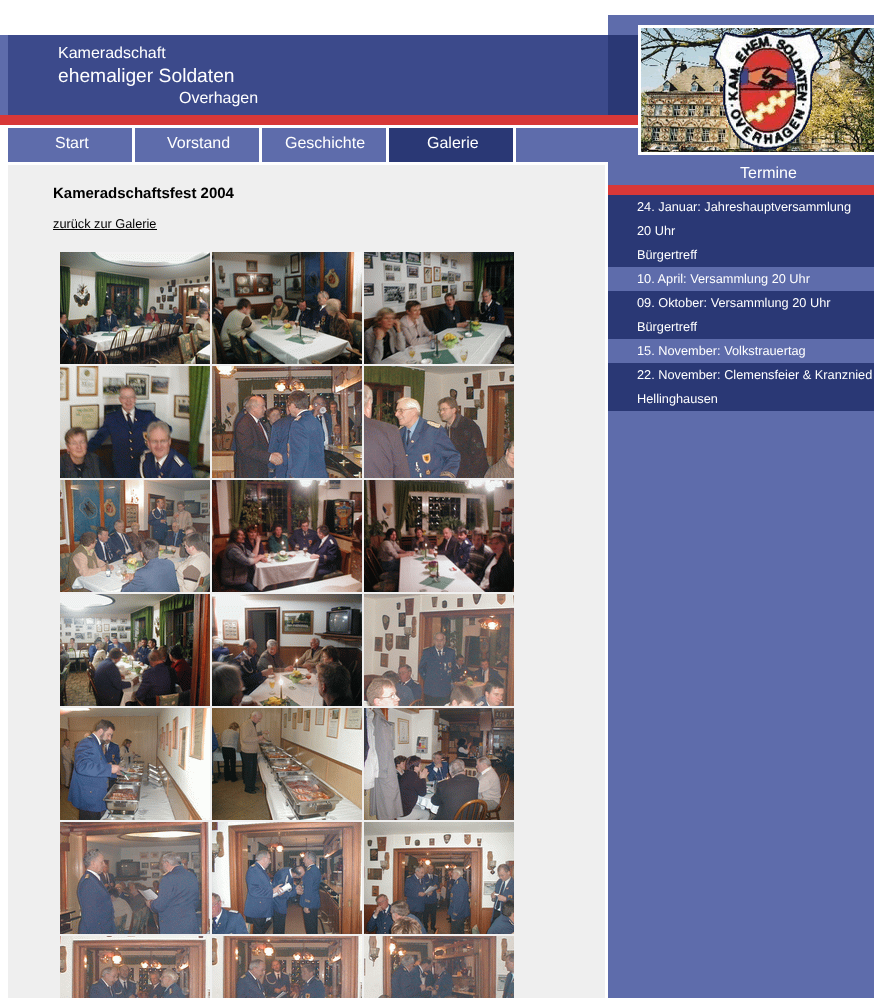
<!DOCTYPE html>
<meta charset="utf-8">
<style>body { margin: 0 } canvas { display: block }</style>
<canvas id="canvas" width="874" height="998"></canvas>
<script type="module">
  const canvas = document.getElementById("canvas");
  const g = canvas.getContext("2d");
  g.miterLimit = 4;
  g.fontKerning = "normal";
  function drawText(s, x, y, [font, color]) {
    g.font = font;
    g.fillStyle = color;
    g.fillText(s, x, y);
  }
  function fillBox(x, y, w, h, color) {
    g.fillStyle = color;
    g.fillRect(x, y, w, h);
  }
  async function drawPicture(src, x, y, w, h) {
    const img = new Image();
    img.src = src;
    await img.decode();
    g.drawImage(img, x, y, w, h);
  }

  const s1 = ["16px Liberation Sans", "#FFFFFF"];
  const s2 = ["19.25px Liberation Sans", "#FFFFFF"];
  const s3 = ["bold 15px Liberation Sans", "#000000"];
  const s4 = ["12.75px Liberation Sans", "#000000"];
  const s5 = ["12.75px Liberation Sans", "#FFFFFF"];

  fillBox(0, 0, 874, 998, "#FFFFFF");
  await drawPicture("pic1.png", 0, 35, 8, 90);
  await drawPicture("pic2.png", 8, 15, 866, 983);
  await drawPicture("pic3.png", 8, 15, 600, 150);
  drawText("Kameradschaft", 58, 58, s1);
  drawText("ehemaliger Soldaten", 58, 82, s2);
  drawText("Overhagen", 179, 103, s1);
  fillBox(132, 128, 3, 34, "#FFFFFF");
  drawText("Start", 55, 148, s1);
  fillBox(259, 128, 3, 34, "#FFFFFF");
  drawText("Vorstand", 167, 148, s1);
  fillBox(386, 128, 3, 34, "#FFFFFF");
  drawText("Geschichte", 285, 148, s1);
  await drawPicture("pic4.png", 389, 128, 127, 34);
  drawText("Galerie", 427, 148, s1);
  await drawPicture("pic5.png", 608, 35, 30, 93);
  await drawPicture("pic6.png", 638, 25, 236, 130);
  drawText("Kameradschaftsfest 2004", 53, 198, s3);
  drawText("zurück zur Galerie", 53, 228, s4);
  fillBox(53, 229, 104, 1, "#000000");
  await drawPicture("pic7.png", 60, 252, 150, 112);
  await drawPicture("pic8.png", 212, 252, 150, 112);
  await drawPicture("pic9.png", 364, 252, 150, 112);
  await drawPicture("pic10.png", 60, 366, 150, 112);
  await drawPicture("pic11.png", 212, 366, 150, 112);
  await drawPicture("pic12.png", 364, 366, 150, 112);
  await drawPicture("pic13.png", 60, 480, 150, 112);
  await drawPicture("pic14.png", 212, 480, 150, 112);
  await drawPicture("pic15.png", 364, 480, 150, 112);
  await drawPicture("pic16.png", 60, 594, 150, 112);
  await drawPicture("pic17.png", 212, 594, 150, 112);
  await drawPicture("pic18.png", 364, 594, 150, 112);
  await drawPicture("pic19.png", 60, 708, 150, 112);
  await drawPicture("pic20.png", 212, 708, 150, 112);
  await drawPicture("pic21.png", 364, 708, 150, 112);
  await drawPicture("pic22.png", 60, 822, 150, 112);
  await drawPicture("pic23.png", 212, 822, 150, 112);
  await drawPicture("pic24.png", 364, 822, 150, 112);
  await drawPicture("pic25.png", 60, 936, 150, 62);
  await drawPicture("pic26.png", 212, 936, 150, 62);
  await drawPicture("pic27.png", 364, 936, 150, 62);
  fillBox(608, 185, 266, 10, "#D83838");
  drawText("Termine", 740, 178, s1);
  fillBox(608, 195, 266, 72, "#2A3875");
  drawText("24. Januar: Jahreshauptversammlung", 637, 211, s5);
  drawText("20 Uhr", 637, 235, s5);
  drawText("Bürgertreff", 637, 259, s5);
  drawText("10. April: Versammlung 20 Uhr", 637, 283, s5);
  fillBox(608, 291, 266, 48, "#2A3875");
  drawText("09. Oktober: Versammlung 20 Uhr", 637, 307, s5);
  drawText("Bürgertreff", 637, 331, s5);
  drawText("15. November: Volkstrauertag", 637, 355, s5);
  fillBox(608, 363, 266, 48, "#2A3875");
  drawText("22. November: Clemensfeier & Kranznied", 637, 379, s5);
  drawText("Hellinghausen", 637, 403, s5);
</script>
